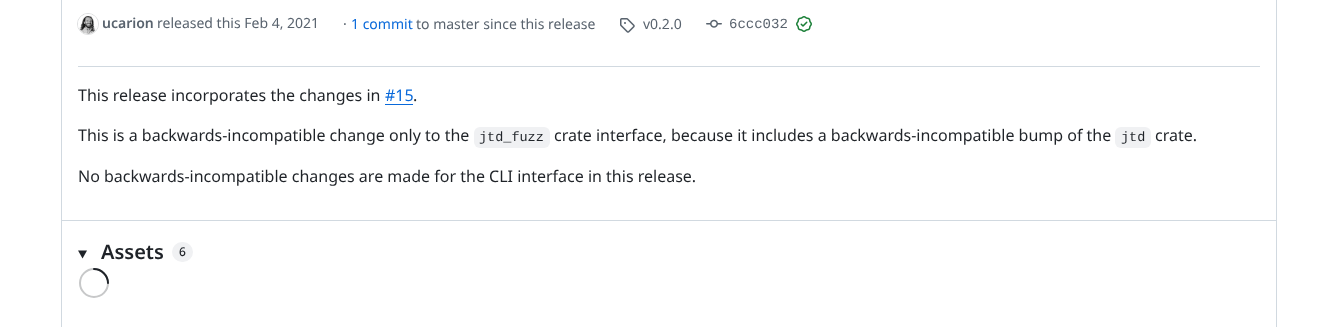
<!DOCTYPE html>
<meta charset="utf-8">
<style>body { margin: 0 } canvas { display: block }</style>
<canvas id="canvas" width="1338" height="327"></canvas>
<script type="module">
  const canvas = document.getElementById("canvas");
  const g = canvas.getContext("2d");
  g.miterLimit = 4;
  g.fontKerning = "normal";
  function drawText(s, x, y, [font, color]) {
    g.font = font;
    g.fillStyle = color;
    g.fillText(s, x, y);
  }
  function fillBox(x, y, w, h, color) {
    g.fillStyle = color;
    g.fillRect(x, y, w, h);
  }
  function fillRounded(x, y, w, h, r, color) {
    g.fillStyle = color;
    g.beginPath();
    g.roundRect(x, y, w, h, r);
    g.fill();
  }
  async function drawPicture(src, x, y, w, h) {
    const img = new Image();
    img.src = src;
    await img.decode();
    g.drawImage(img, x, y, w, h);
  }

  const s1 = ["600 14px Noto Sans", "#59636E"];
  const s2 = ["14px Noto Sans", "#59636E"];
  const s3 = ["14px Noto Sans", "#0969DA"];
  const s4 = ["14px Liberation Mono", "#59636E"];
  const s5 = ["16px Noto Sans", "#1F2328"];
  const s6 = ["16px Noto Sans", "#0969DA"];
  const s7 = ["13.5px Liberation Mono", "#1F2328"];
  const s8 = ["600 20px Noto Sans", "#1F2328"];
  const s9 = ["500 12px Noto Sans", "#1F2328"];

  fillBox(0, 0, 1338, 327, "#FFFFFF");
  g.strokeStyle = "#D1D9E0";
  g.strokeRect(61.5, -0.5, 1215, 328);
  fillBox(62, 220, 1214, 1, "#D1D9E0");
  fillBox(78, 66, 1182, 1, "#D1D9E0");
  g.beginPath();
  g.arc(88, 24, 10.5, 0, Math.PI * 2);
  g.strokeStyle = "#DDDEDF";
  g.stroke();
  g.fillStyle = "#FFFFFF";
  g.beginPath();
  g.arc(88, 24, 10, 0, Math.PI * 2);
  g.fill();
  await drawPicture("pic1.png", 78, 14, 19, 20);
  drawText("ucarion", 102, 28, s1);
  drawText("released this Feb 4, 2021", 157, 28, s2);
  drawText("·", 343, 29, s2);
  drawText("1 commit", 351, 29, s3);
  drawText("to master since this release", 416, 29, s2);
  await drawPicture("pic2.png", 620, 18, 15, 15);
  drawText("v0.2.0", 643, 29, s2);
  await drawPicture("pic3.png", 706, 19, 16, 9);
  drawText("6ccc032", 729, 28, s4);
  await drawPicture("pic4.png", 796, 16, 16, 16);
  drawText("This release incorporates the changes in", 78, 101, s5);
  drawText("#15", 385, 101, s6);
  fillBox(385, 104, 28, 1, "#0969DA");
  drawText(".", 413, 101, s5);
  drawText("This is a backwards-incompatible change only to the", 78, 141, s5);
  fillRounded(474, 127, 76, 21, 6, "#F0F1F3");
  drawText("jtd_fuzz", 479, 141, s7);
  drawText("crate interface, because it includes a backwards-incompatible bump of the", 554, 141, s5);
  fillRounded(1115, 127, 36, 21, 6, "#F0F1F3");
  drawText("jtd", 1121, 141, s7);
  drawText("crate.", 1155, 141, s5);
  drawText("No backwards-incompatible changes are made for the CLI interface in this release.", 78, 182, s5);
  g.beginPath();
  g.moveTo(78, 250.5);
  g.lineTo(87, 250.5);
  g.lineTo(82.5, 258.5);
  g.closePath();
  g.fill();
  drawText("Assets", 101, 259, s8);
  fillRounded(172, 242, 21, 20, 10, "#F0F1F3");
  drawText("6", 179, 256, s9);
  g.beginPath();
  g.arc(94, 283, 14, 0, Math.PI * 2);
  g.strokeStyle = "#C7C8C9";
  g.lineWidth = 2;
  g.stroke();
  g.beginPath();
  g.moveTo(108, 283);
  g.bezierCurveTo(108, 275.5, 101.5, 269, 94, 269);
  g.strokeStyle = "#1F2328";
  g.lineCap = "round";
  g.stroke();
</script>
